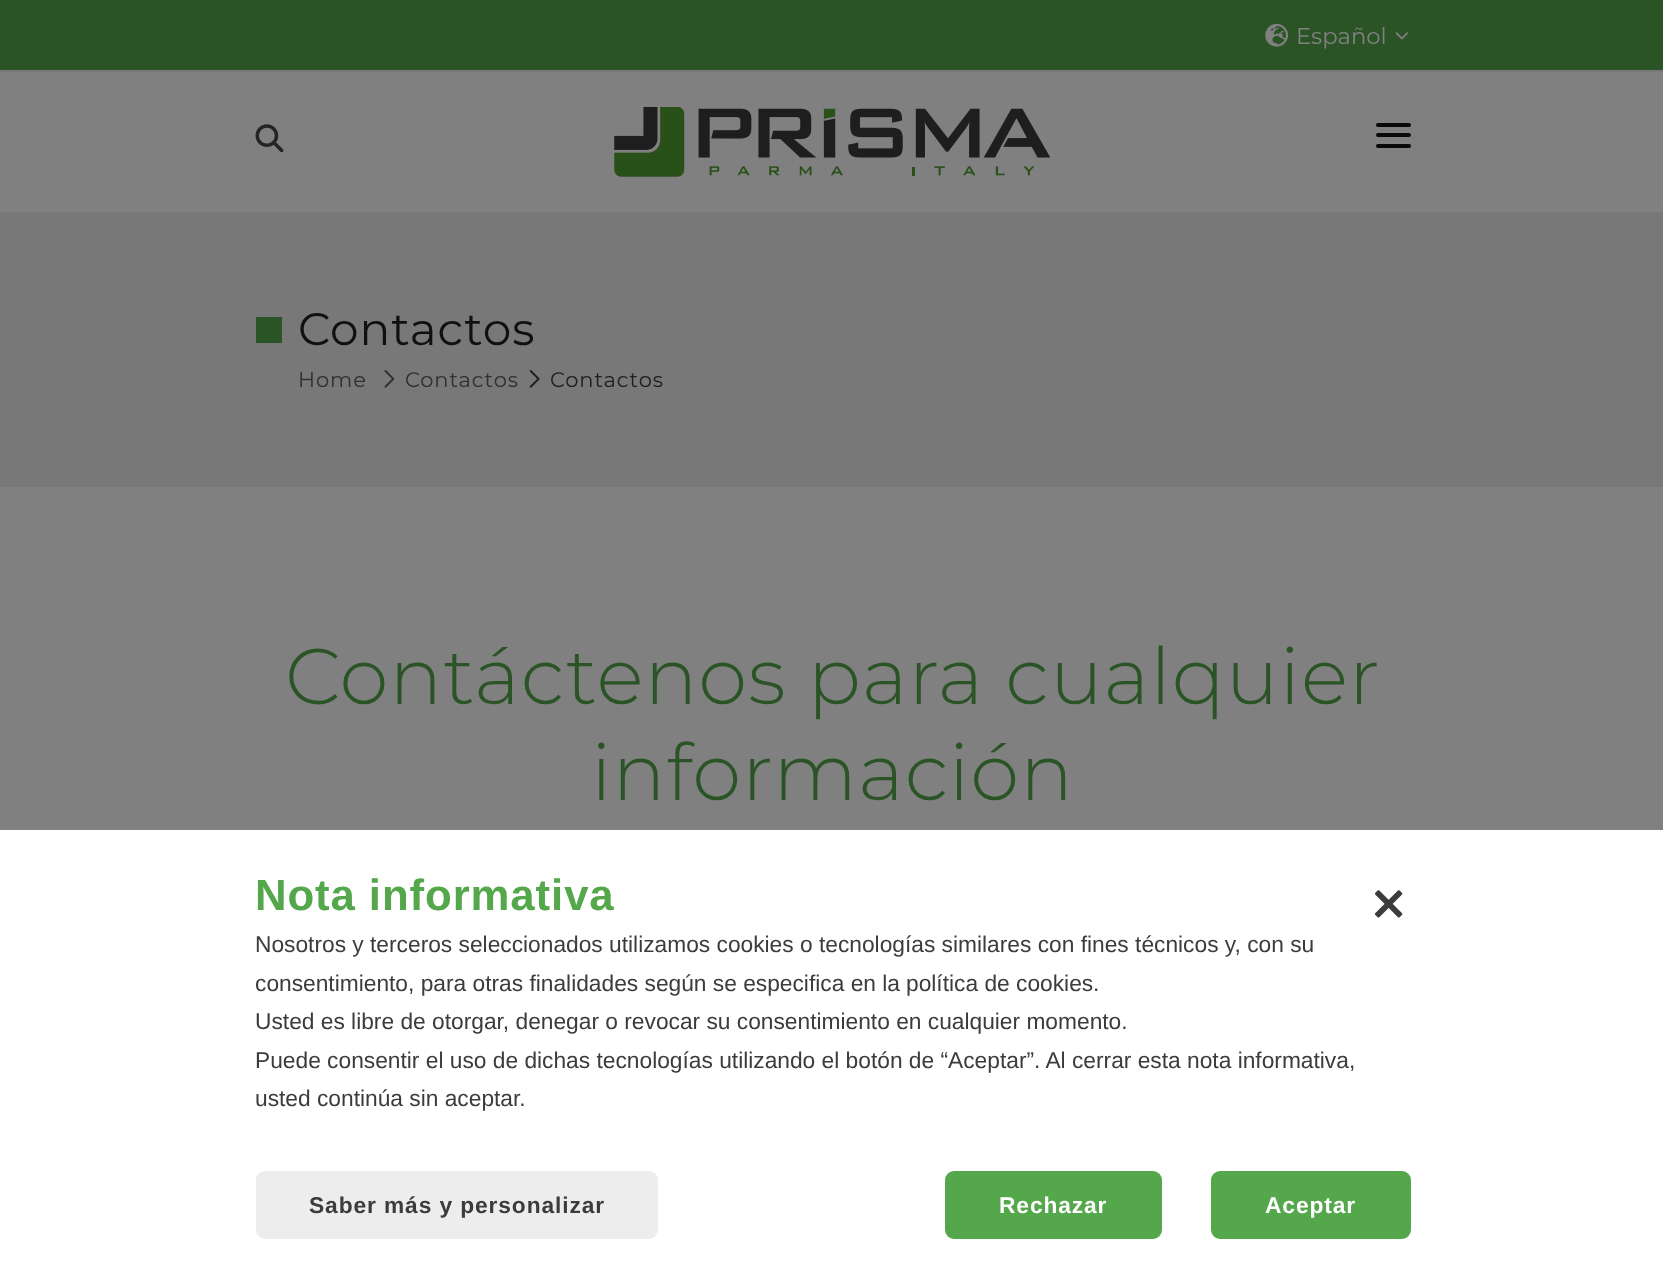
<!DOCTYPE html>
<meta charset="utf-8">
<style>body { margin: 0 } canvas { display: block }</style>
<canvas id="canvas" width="1663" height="1273"></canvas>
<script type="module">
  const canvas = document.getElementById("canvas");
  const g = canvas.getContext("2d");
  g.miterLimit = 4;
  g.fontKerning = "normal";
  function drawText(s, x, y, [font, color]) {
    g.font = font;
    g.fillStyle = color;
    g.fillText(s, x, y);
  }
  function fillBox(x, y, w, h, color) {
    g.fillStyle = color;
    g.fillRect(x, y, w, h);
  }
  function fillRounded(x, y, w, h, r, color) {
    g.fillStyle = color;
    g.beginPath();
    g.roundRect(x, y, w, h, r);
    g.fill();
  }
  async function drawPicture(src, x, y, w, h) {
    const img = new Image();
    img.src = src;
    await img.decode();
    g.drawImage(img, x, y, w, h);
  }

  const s1 = ["22.75px Montserrat", "#808080"];
  const s2 = ["45.5px Montserrat", "#101010"];
  const s3 = ["21px Montserrat", "#303030"];
  const s4 = ["21px Montserrat", "#1E1E1E"];
  const s5 = ["300 78.75px Montserrat", "#2B5426"];
  const s6 = ["bold 43.75px Liberation Sans", "#55A74B"];
  const s7 = ["22.75px Liberation Sans", "#3C3C3C"];
  const s8 = ["bold 22.75px Liberation Sans", "#3C3C3C"];
  const s9 = ["bold 22.75px Liberation Sans", "#FFFFFF"];

  fillBox(0, 0, 1663, 1273, "#808080");
  fillBox(0, 0, 1663, 70, "#2B5426");
  fillBox(0, 70, 1663, 2, "#777777");
  await drawPicture("pic1.png", 1265, 23, 23, 24);
  drawText("Español", 1296, 44, s1);
  await drawPicture("pic2.png", 1395, 32, 13, 8);
  await drawPicture("pic3.png", 255, 124, 29, 29);
  await drawPicture("pic4.png", 614, 107, 436, 70);
  fillRounded(1376, 133, 35, 4, 2, "#090909");
  fillRounded(1376, 123, 35, 4, 2, "#090909");
  fillRounded(1376, 144, 35, 4, 2, "#090909");
  fillBox(0, 212, 1663, 275, "#797878");
  fillBox(256, 317, 26, 26, "#2B5426");
  g.letterSpacing = "0.9px";
  drawText("Contactos", 298, 345, s2);
  drawText("Home", 298, 387, s3);
  await drawPicture("pic5.png", 384, 370, 11, 18);
  drawText("Contactos", 405, 387, s3);
  await drawPicture("pic6.png", 529, 370, 11, 18);
  drawText("Contactos", 550, 387, s4);
  drawText("Contáctenos para cualquier", 285, 704, s5);
  drawText("información", 591, 800, s5);
  fillBox(0, 830, 1663, 443, "#FFFFFF");
  drawText("Nota informativa", 255, 910, s6);
  await drawPicture("pic7.png", 1375, 890, 28, 28);
  g.letterSpacing = "0px";
  drawText("Nosotros y terceros seleccionados utilizamos cookies o tecnologías similares con fines técnicos y, con su", 255, 952, s7);
  drawText("consentimiento, para otras finalidades según se especifica en la", 255, 991, s7);
  drawText("política de cookies", 906, 991, s7);
  drawText(".", 1093, 991, s7);
  drawText("Usted es libre de otorgar, denegar o revocar su consentimiento en cualquier momento.", 255, 1029, s7);
  drawText("Puede consentir el uso de dichas tecnologías utilizando el botón de “Aceptar”. Al cerrar esta nota informativa,", 255, 1068, s7);
  drawText("usted continúa sin aceptar.", 255, 1106, s7);
  g.fillStyle = "#EDEDED";
  g.beginPath();
  g.roundRect(257, 1172, 400, 66, 8);
  g.fill();
  g.strokeStyle = "#EDEDED";
  g.lineWidth = 2;
  g.stroke();
  g.letterSpacing = "0.9px";
  drawText("Saber más y personalizar", 309, 1213, s8);
  g.fillStyle = "#55A74B";
  g.beginPath();
  g.roundRect(946, 1172, 215, 66, 8);
  g.fill();
  g.strokeStyle = "#55A74B";
  g.stroke();
  drawText("Rechazar", 999, 1213, s9);
  g.fillStyle = "#55A74B";
  g.beginPath();
  g.roundRect(1212, 1172, 198, 66, 8);
  g.fill();
  g.stroke();
  drawText("Aceptar", 1265, 1213, s9);
</script>
